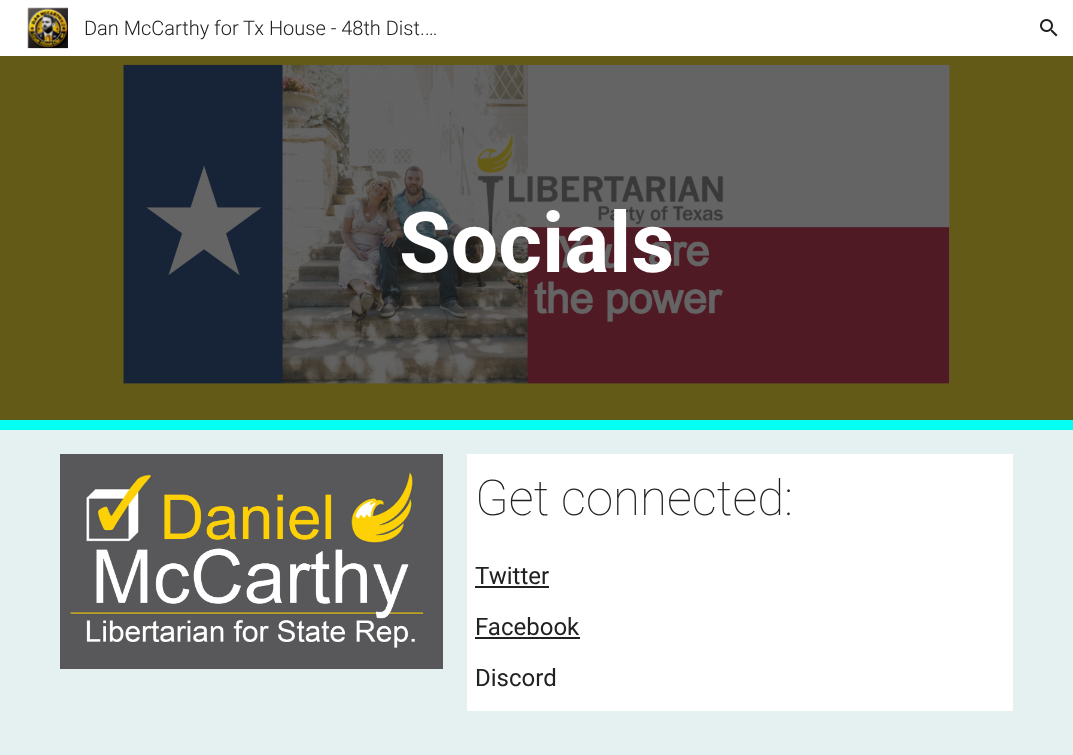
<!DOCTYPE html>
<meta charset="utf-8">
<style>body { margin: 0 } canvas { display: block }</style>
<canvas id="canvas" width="1073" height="755"></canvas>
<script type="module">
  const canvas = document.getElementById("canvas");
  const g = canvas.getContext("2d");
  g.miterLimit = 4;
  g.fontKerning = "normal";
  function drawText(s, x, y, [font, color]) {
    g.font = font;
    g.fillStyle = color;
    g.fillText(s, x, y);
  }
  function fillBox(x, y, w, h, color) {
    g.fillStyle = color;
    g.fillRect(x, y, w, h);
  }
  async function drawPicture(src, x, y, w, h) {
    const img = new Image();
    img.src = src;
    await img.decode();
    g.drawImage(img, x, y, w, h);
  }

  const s1 = ["300 20px Roboto", "#212121"];
  const s2 = ["bold 84px Roboto", "#FFFFFF"];
  const s3 = ["100 49.25px Roboto", "#212121"];
  const s4 = ["24px Roboto", "#212121"];

  fillBox(0, 0, 1073, 755, "#E4F1F0");
  fillBox(0, 0, 1073, 56, "#FFFFFF");
  await drawPicture("pic1.png", 27, 7, 41, 42);
  drawText("Dan McCarthy for Tx House - 48th Dist.…", 84, 35, s1);
  await drawPicture("pic2.png", 1040, 19, 18, 18);
  await drawPicture("pic3.png", 0, 56, 1073, 364);
  fillBox(0, 420, 1073, 10, "#05FEF2");
  drawText("Socials", 399, 272, s2);
  await drawPicture("pic4.png", 60, 454, 383, 215);
  fillBox(467, 454, 546, 257, "#FFFFFF");
  drawText("Get connected:", 475, 515, s3);
  drawText("Twitter", 475, 584, s4);
  fillBox(475, 586, 74, 2, "#212121");
  drawText("Facebook", 475, 635, s4);
  fillBox(475, 637, 105, 2, "#212121");
  drawText("Discord", 475, 686, s4);
</script>
